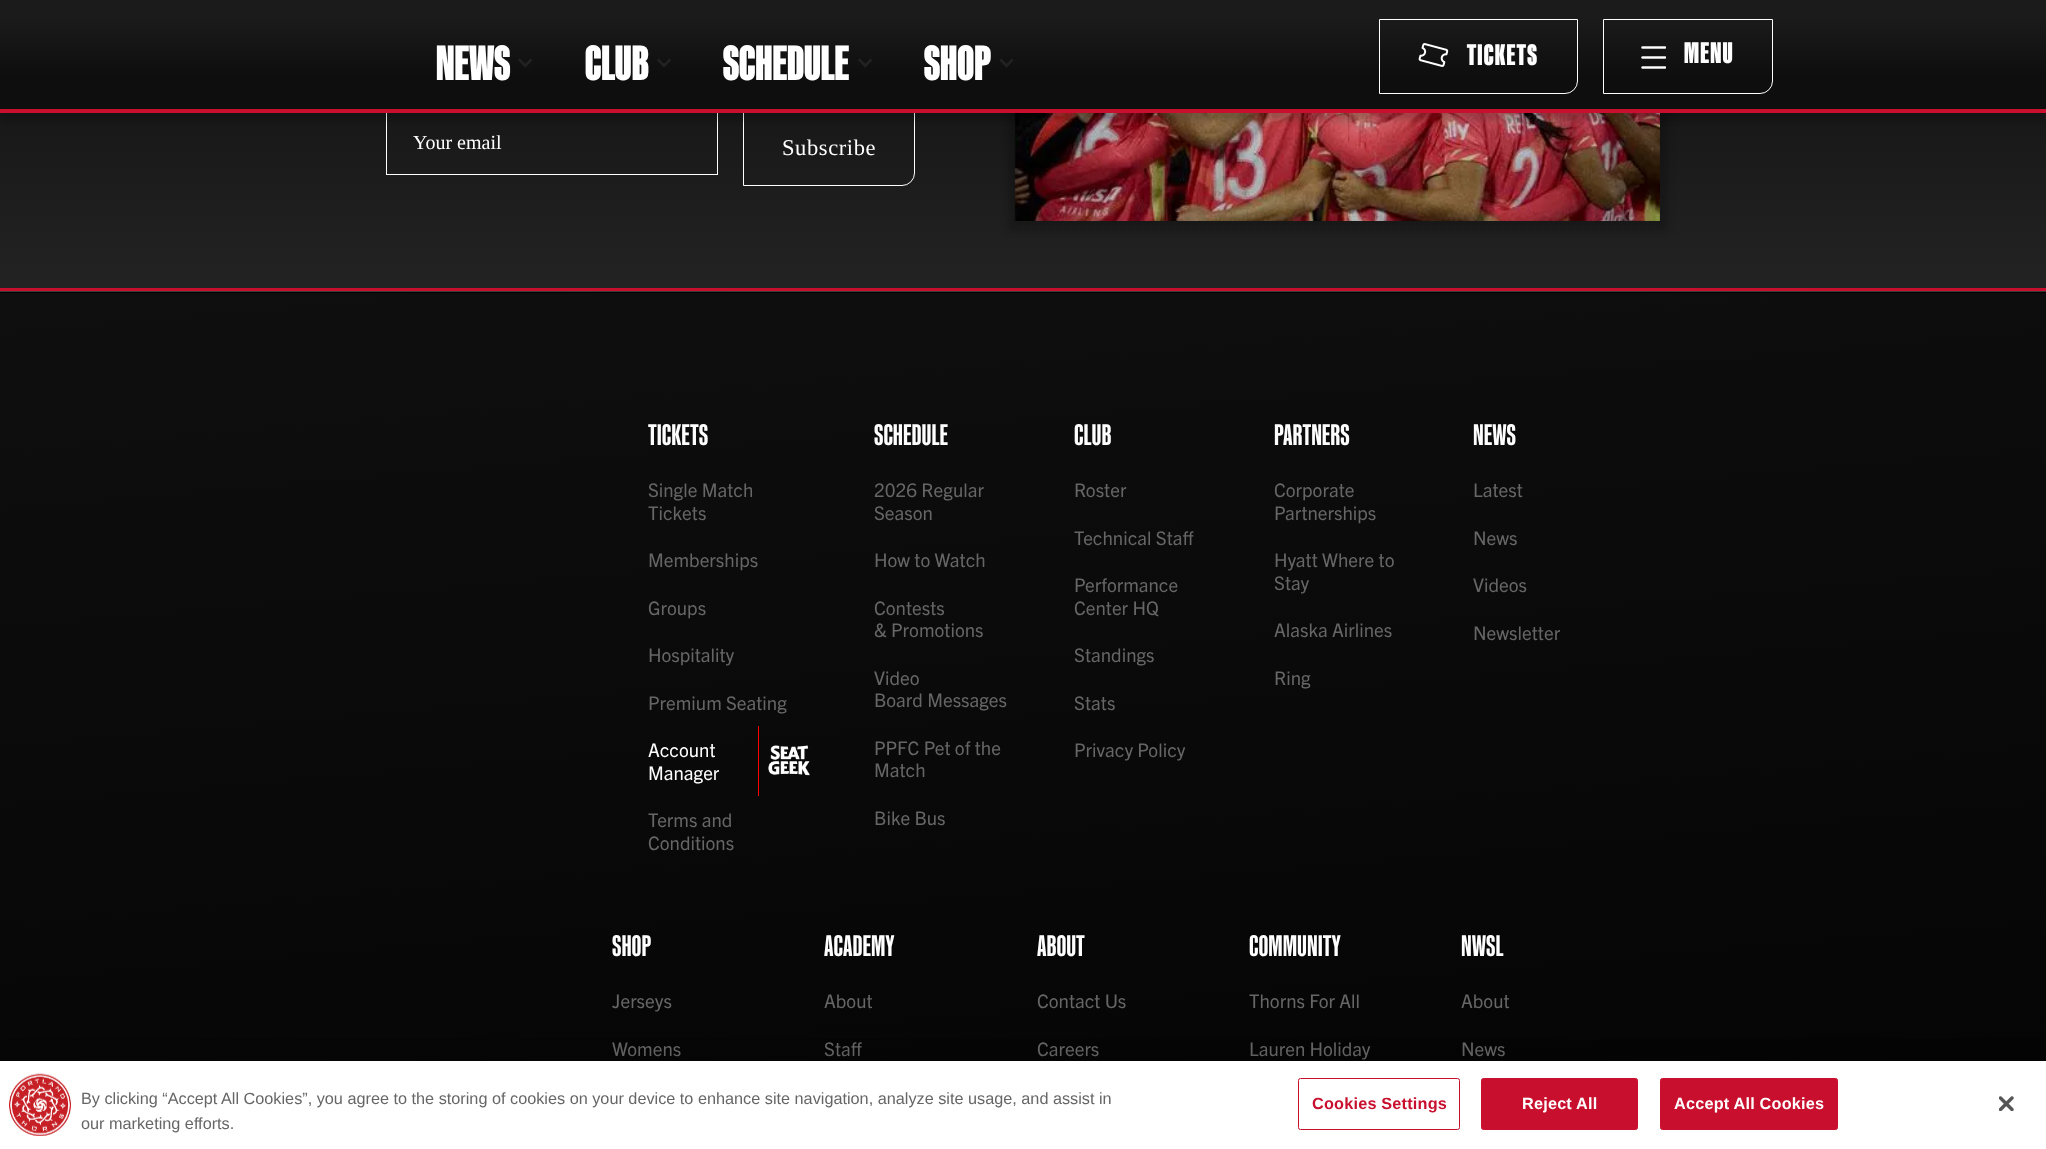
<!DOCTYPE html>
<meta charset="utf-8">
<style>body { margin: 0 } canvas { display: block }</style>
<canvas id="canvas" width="2046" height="1149"></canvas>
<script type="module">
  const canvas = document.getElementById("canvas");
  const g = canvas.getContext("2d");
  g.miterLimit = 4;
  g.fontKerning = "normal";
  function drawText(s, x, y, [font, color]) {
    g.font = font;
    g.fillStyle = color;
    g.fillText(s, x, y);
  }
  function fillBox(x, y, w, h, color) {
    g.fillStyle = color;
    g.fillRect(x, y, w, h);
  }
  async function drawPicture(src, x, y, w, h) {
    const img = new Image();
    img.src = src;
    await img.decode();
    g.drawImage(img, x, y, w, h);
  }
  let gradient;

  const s1 = ["900 50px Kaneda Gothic", "#FFFFFF"];
  const s2 = ["900 30px Kaneda Gothic", "#FFFFFF"];
  const s3 = ["20px Liberation Serif", "#FFFFFF"];
  const s4 = ["22.5px Liberation Serif", "#FFFFFF"];
  const s5 = ["bold 30px Kaneda Gothic", "#FFFFFF"];
  const s6 = ["18.75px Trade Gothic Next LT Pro", "#666666"];
  const s7 = ["18.75px Trade Gothic Next LT Pro", "#FFFFFF"];
  const s8 = ["16.25px Liberation Sans", "#666666"];
  const s9 = ["bold 16.25px Liberation Sans", "#C8102E"];
  const s10 = ["bold 16.25px Liberation Sans", "#FFFFFF"];

  fillBox(0, 0, 2046, 1149, "#C8102E");
  gradient = g.createLinearGradient(1023, -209, 1023, 288);
  gradient.addColorStop(0, "#040404");
  gradient.addColorStop(1, "#232323");
  g.fillStyle = gradient;
  g.fillRect(0, 113, 2046, 175);
  g.strokeStyle = "#FFFFFF";
  g.strokeRect(386.5, 111.5, 331, 63);
  g.beginPath();
  g.roundRect(743.5, 111.5, 171, 74, [0, 0, 12.5, 0]);
  g.stroke();
  g.save();
  g.beginPath();
  g.moveTo(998, 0);
  g.lineTo(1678, 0);
  g.lineTo(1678, 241);
  g.lineTo(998, 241);
  g.closePath();
  g.moveTo(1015, -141);
  g.lineTo(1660, -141);
  g.lineTo(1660, 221);
  g.lineTo(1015, 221);
  g.closePath();
  g.clip("evenodd");
  g.fillStyle = "rgba(0, 0, 0, 0.2)";
  g.filter = "blur(3px)";
  g.beginPath();
  g.rect(1008, -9, 660, 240);
  g.fill();
  g.filter = "none";
  g.restore();
  await drawPicture("pic6.png", 1014, 113, 646, 108);
  g.fillStyle = "rgba(0, 0, 0, 0.2)";
  g.filter = "blur(3px)";
  g.beginPath();
  g.rect(0, 8, 2046, 112);
  g.fill();
  g.filter = "none";
  gradient = g.createLinearGradient(1023, 0, 1023, 109);
  gradient.addColorStop(0.15, "#1B1B1B");
  gradient.addColorStop(0.7, "#0E0E0E");
  g.fillStyle = gradient;
  g.fillRect(0, 0, 2046, 109);
  fillBox(0, 109, 2046, 4, "#C8102E");
  drawText("NEWS", 436, 80, s1);
  await drawPicture("pic1.png", 518, 58, 14, 10);
  drawText("CLUB", 585, 80, s1);
  await drawPicture("pic2.png", 657, 58, 14, 10);
  drawText("SCHEDULE", 723, 80, s1);
  await drawPicture("pic1.png", 858, 58, 14, 10);
  drawText("SHOP", 924, 80, s1);
  await drawPicture("pic3.png", 999, 58, 15, 10);
  g.beginPath();
  g.roundRect(1379.5, 19.5, 198, 74, [0, 0, 12.5, 0]);
  g.stroke();
  await drawPicture("pic4.png", 1418, 43, 31, 24);
  g.letterSpacing = "1.25px";
  drawText("TICKETS", 1467, 65, s2);
  g.beginPath();
  g.roundRect(1603.5, 19.5, 169, 74, [0, 0, 12.5, 0]);
  g.stroke();
  await drawPicture("pic5.png", 1641, 46, 25, 23);
  drawText("MENU", 1684, 63, s2);
  g.letterSpacing = "0px";
  drawText("Your email", 413, 149, s3);
  g.letterSpacing = "0.6px";
  drawText("Subscribe", 782, 155, s4);
  gradient = g.createLinearGradient(962, -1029, 1085, 377);
  gradient.addColorStop(0, "#0F0F0F");
  gradient.addColorStop(1, "#000000");
  g.fillStyle = gradient;
  g.fillRect(0, 292, 2046, 1);
  gradient = g.createLinearGradient(962, 208, 1085, 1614);
  gradient.addColorStop(0, "#0F0F0F");
  gradient.addColorStop(1, "#000000");
  g.fillStyle = gradient;
  g.fillRect(0, 293, 2046, 768);
  fillBox(0, 291, 2046, 1, "#3B3B3B");
  g.letterSpacing = "0px";
  drawText("TICKETS", 648, 445, s5);
  drawText("Single Match", 648, 497, s6);
  drawText("Tickets", 648, 520, s6);
  drawText("Memberships", 648, 567, s6);
  drawText("Groups", 648, 615, s6);
  drawText("Hospitality", 648, 662, s6);
  drawText("Premium Seating", 648, 710, s6);
  fillBox(758, 726, 1, 70, "#FF0000");
  drawText("Account", 648, 757, s7);
  drawText("Manager", 648, 780, s7);
  await drawPicture("pic7.png", 768, 745, 42, 31);
  drawText("Terms and", 648, 827, s6);
  drawText("Conditions", 648, 850, s6);
  drawText("SCHEDULE", 874, 445, s5);
  drawText("2026 Regular", 874, 497, s6);
  drawText("Season", 874, 520, s6);
  drawText("How to Watch", 874, 567, s6);
  drawText("Contests", 874, 615, s6);
  drawText("& Promotions", 874, 637, s6);
  drawText("Video", 874, 685, s6);
  drawText("Board Messages", 874, 707, s6);
  drawText("PPFC Pet of the", 874, 755, s6);
  drawText("Match", 874, 777, s6);
  drawText("Bike Bus", 874, 825, s6);
  drawText("CLUB", 1074, 445, s5);
  drawText("Roster", 1074, 497, s6);
  drawText("Technical Staff", 1074, 545, s6);
  drawText("Performance", 1074, 592, s6);
  drawText("Center HQ", 1074, 615, s6);
  drawText("Standings", 1074, 662, s6);
  drawText("Stats", 1074, 710, s6);
  drawText("Privacy Policy", 1074, 757, s6);
  drawText("PARTNERS", 1274, 445, s5);
  drawText("Corporate", 1274, 497, s6);
  drawText("Partnerships", 1274, 520, s6);
  drawText("Hyatt Where to", 1274, 567, s6);
  drawText("Stay", 1274, 590, s6);
  drawText("Alaska Airlines", 1274, 637, s6);
  drawText("Ring", 1274, 685, s6);
  drawText("NEWS", 1473, 445, s5);
  drawText("Latest", 1473, 497, s6);
  drawText("News", 1473, 545, s6);
  drawText("Videos", 1473, 592, s6);
  drawText("Newsletter", 1473, 640, s6);
  drawText("SHOP", 612, 956, s5);
  drawText("Jerseys", 612, 1008, s6);
  drawText("Womens", 612, 1056, s6);
  drawText("ACADEMY", 824, 956, s5);
  drawText("About", 824, 1008, s6);
  drawText("Staff", 824, 1056, s6);
  drawText("ABOUT", 1037, 956, s5);
  drawText("Contact Us", 1037, 1008, s6);
  drawText("Careers", 1037, 1056, s6);
  drawText("COMMUNITY", 1249, 956, s5);
  drawText("Thorns For All", 1249, 1008, s6);
  drawText("Lauren Holiday", 1249, 1056, s6);
  drawText("NWSL", 1461, 956, s5);
  drawText("About", 1461, 1008, s6);
  drawText("News", 1461, 1056, s6);
  g.fillStyle = "rgba(0, 0, 0, 0.2)";
  g.filter = "blur(11px)";
  g.beginPath();
  g.rect(0, 1061, 2046, 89);
  g.fill();
  g.filter = "none";
  fillBox(0, 1061, 2046, 88, "#FFFFFF");
  await drawPicture("pic8.png", 9, 1073, 62, 64);
  drawText("By clicking “Accept All Cookies”, you agree to the storing of cookies on your device to enhance site navigation, analyze site usage, and assist in", 81, 1104, s8);
  drawText("our marketing efforts.", 81, 1129, s8);
  g.beginPath();
  g.roundRect(1298.5, 1078.5, 161, 51, 2);
  g.strokeStyle = "#C8102E";
  g.stroke();
  g.letterSpacing = "0.2px";
  drawText("Cookies Settings", 1312, 1109, s9);
  g.beginPath();
  g.roundRect(1481.5, 1078.5, 156, 51, 2);
  g.fill();
  g.stroke();
  drawText("Reject All", 1522, 1109, s10);
  g.fillStyle = "#C8102E";
  g.beginPath();
  g.roundRect(1660.5, 1078.5, 177, 51, 2);
  g.fill();
  g.stroke();
  drawText("Accept All Cookies", 1674, 1109, s10);
  await drawPicture("pic9.png", 1999, 1096, 15, 15);
</script>
